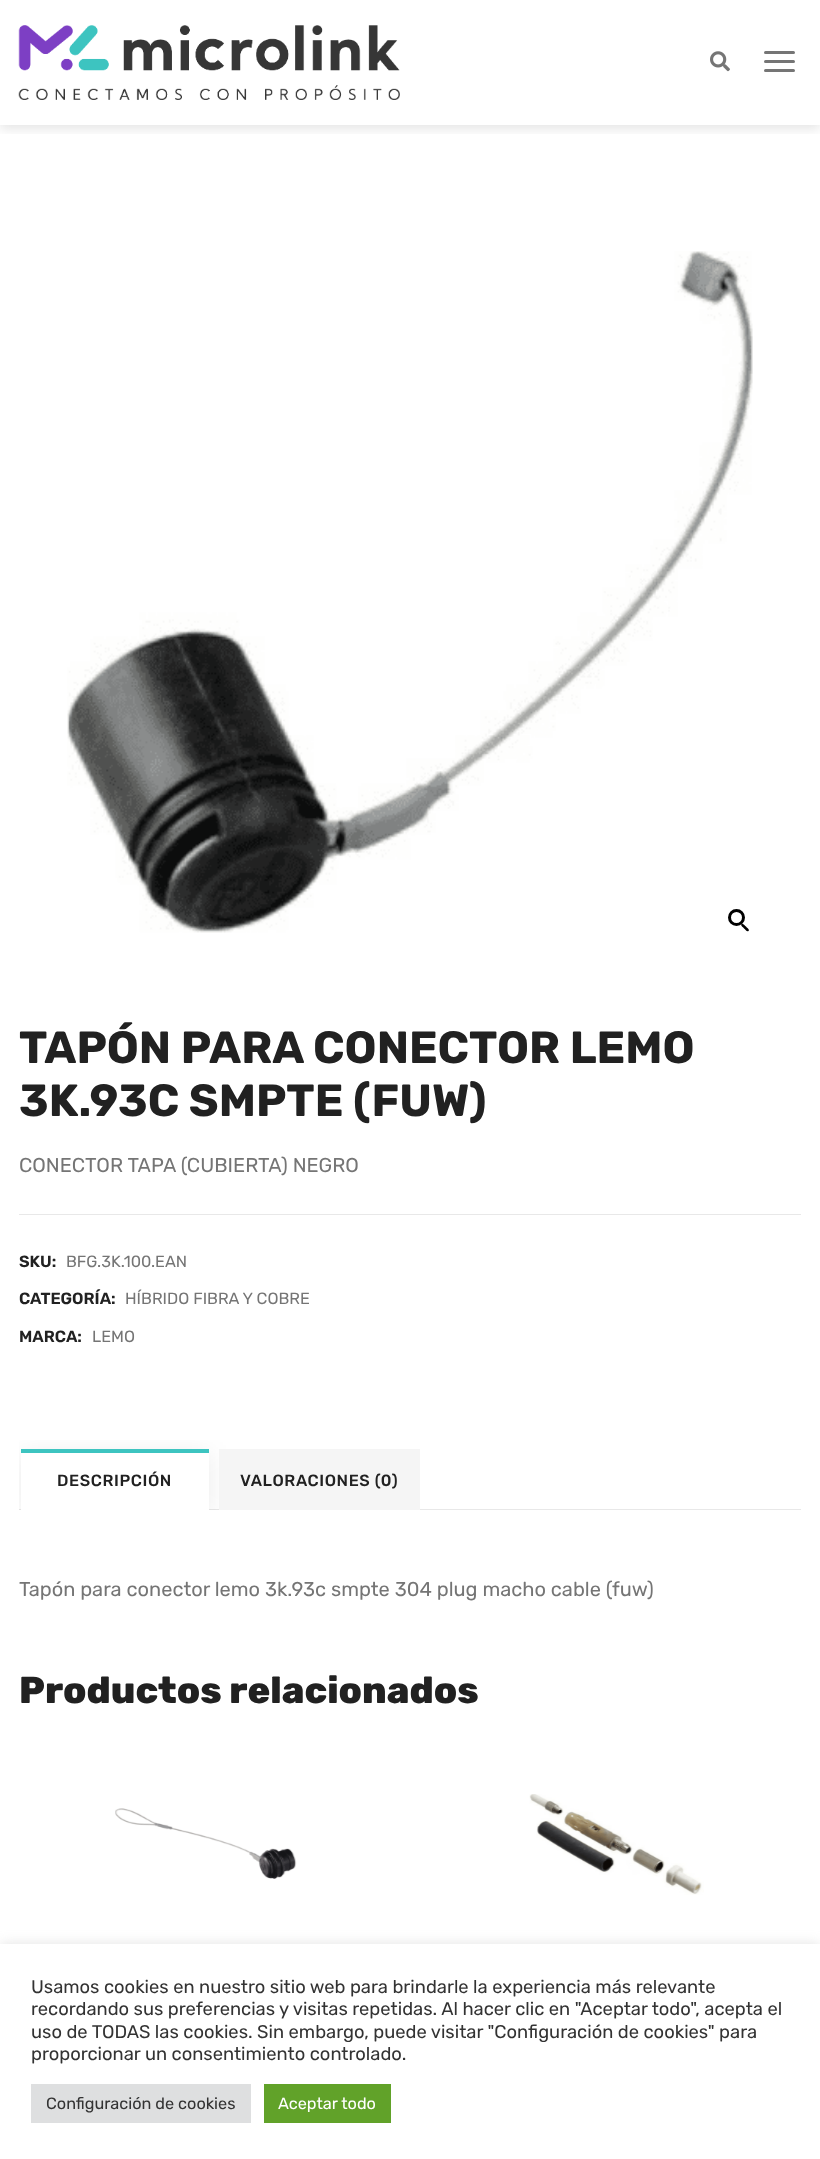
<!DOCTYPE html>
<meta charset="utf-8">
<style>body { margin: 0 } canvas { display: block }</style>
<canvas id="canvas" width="820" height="2159"></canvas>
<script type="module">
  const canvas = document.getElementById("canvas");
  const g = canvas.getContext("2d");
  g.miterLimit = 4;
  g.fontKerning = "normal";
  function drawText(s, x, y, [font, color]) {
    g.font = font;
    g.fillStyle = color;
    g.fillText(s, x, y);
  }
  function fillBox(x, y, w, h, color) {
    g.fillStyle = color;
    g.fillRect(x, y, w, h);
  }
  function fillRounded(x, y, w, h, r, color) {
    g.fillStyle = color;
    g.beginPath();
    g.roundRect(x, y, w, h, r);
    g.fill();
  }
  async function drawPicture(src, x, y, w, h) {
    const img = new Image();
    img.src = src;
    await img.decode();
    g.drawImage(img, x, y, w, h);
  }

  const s1 = ["bold 45px Rubik", "#212121"];
  const s2 = ["20px Rubik", "#757575"];
  const s3 = ["600 16.25px Rubik", "#212121"];
  const s4 = ["16.25px Rubik", "#757575"];
  const s5 = ["500 16.25px Rubik", "#212121"];
  const s6 = ["800 37.5px Rubik", "#212121"];
  const s7 = ["18.35px Rubik", "#333333"];
  const s8 = ["16.25px Rubik", "#333333"];
  const s9 = ["16.25px Rubik", "#FFFFFF"];

  fillBox(0, 0, 820, 2159, "#FFFFFF");
  g.save();
  g.beginPath();
  g.rect(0, 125, 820, 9);
  g.clip();
  g.fillStyle = "rgba(0, 0, 0, 0.1)";
  g.filter = "blur(6px)";
  g.beginPath();
  g.rect(0, 4, 820, 125);
  g.fill();
  g.filter = "none";
  g.restore();
  await drawPicture("pic1.png", 18, 25, 382, 75);
  await drawPicture("pic2.png", 710, 51, 20, 21);
  fillRounded(764, 51, 31, 3, 1.5, "#757575");
  fillRounded(764, 60, 31, 3, 1.5, "#757575");
  fillRounded(764, 69, 31, 3, 1.5, "#757575");
  await drawPicture("pic3.png", 67, 251, 686, 682);
  g.beginPath();
  g.arc(736.5, 917.5, 7, 0, Math.PI * 2);
  g.strokeStyle = "#000000";
  g.lineWidth = 3;
  g.stroke();
  g.fillStyle = "#000000";
  g.beginPath();
  g.moveTo(741.5, 924);
  g.bezierCurveTo(743, 922.5, 745, 926, 746, 926.5);
  g.bezierCurveTo(746.5, 927.5, 750, 929.5, 748.5, 931);
  g.bezierCurveTo(747, 932.5, 745, 929, 744, 928.5);
  g.bezierCurveTo(743.5, 927.5, 740, 925.5, 741.5, 924);
  g.closePath();
  g.fill();
  drawText("TAPÓN PARA CONECTOR LEMO", 19, 1063, s1);
  drawText("3K.93C SMPTE (FUW)", 19, 1116, s1);
  drawText("CONECTOR TAPA (CUBIERTA) NEGRO", 19, 1172, s2);
  fillBox(19, 1214, 782, 1, "#E8E8E8");
  drawText("SKU:", 19, 1267, s3);
  drawText("BFG.3K.100.EAN", 66, 1267, s4);
  drawText("CATEGORÍA:", 19, 1304, s3);
  drawText("HÍBRIDO FIBRA Y COBRE", 125, 1304, s4);
  drawText("MARCA:", 19, 1342, s3);
  drawText("LEMO", 92, 1342, s4);
  fillBox(19, 1509, 782, 1, "#E8E8E8");
  g.save();
  g.beginPath();
  g.rect(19, 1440, 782, 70);
  g.clip();
  g.fillStyle = "rgba(0, 0, 0, 0.08)";
  g.filter = "blur(12.5px)";
  g.beginPath();
  g.rect(21, 1453, 188, 61);
  g.fill();
  g.filter = "none";
  g.restore();
  fillBox(21, 1453, 188, 57, "#FFFFFF");
  fillBox(21, 1449, 188, 4, "#3DC4C0");
  g.letterSpacing = "0.6px";
  drawText("DESCRIPCIÓN", 57, 1486, s5);
  fillBox(219, 1449, 201, 61, "#F5F5F5");
  drawText("VALORACIONES (0)", 240, 1486, s5);
  g.letterSpacing = "0px";
  drawText("Tapón para conector lemo 3k.93c smpte 304 plug macho cable (fuw)", 19, 1596, s2);
  drawText("Productos relacionados", 19, 1703, s6);
  await drawPicture("pic4.png", 115, 1808, 182, 71);
  await drawPicture("pic5.png", 529, 1794, 175, 101);
  g.fillStyle = "rgba(172, 171, 171, 0.3)";
  g.filter = "blur(6px)";
  g.beginPath();
  g.rect(0, 1943, 820, 216);
  g.fill();
  g.filter = "none";
  fillBox(0, 1944, 820, 215, "#FFFFFF");
  drawText("Usamos cookies en nuestro sitio web para brindarle la experiencia más relevante", 31, 1993, s7);
  drawText("recordando sus preferencias y visitas repetidas. Al hacer clic en \"Aceptar todo\", acepta el", 31, 2015, s7);
  drawText("uso de TODAS las cookies. Sin embargo, puede visitar \"Configuración de cookies\" para", 31, 2038, s7);
  drawText("proporcionar un consentimiento controlado.", 31, 2060, s7);
  fillBox(31, 2084, 220, 39, "#DEDFE0");
  drawText("Configuración de cookies", 46, 2109, s8);
  fillBox(264, 2084, 127, 39, "#61A229");
  drawText("Aceptar todo", 278, 2109, s9);
</script>
